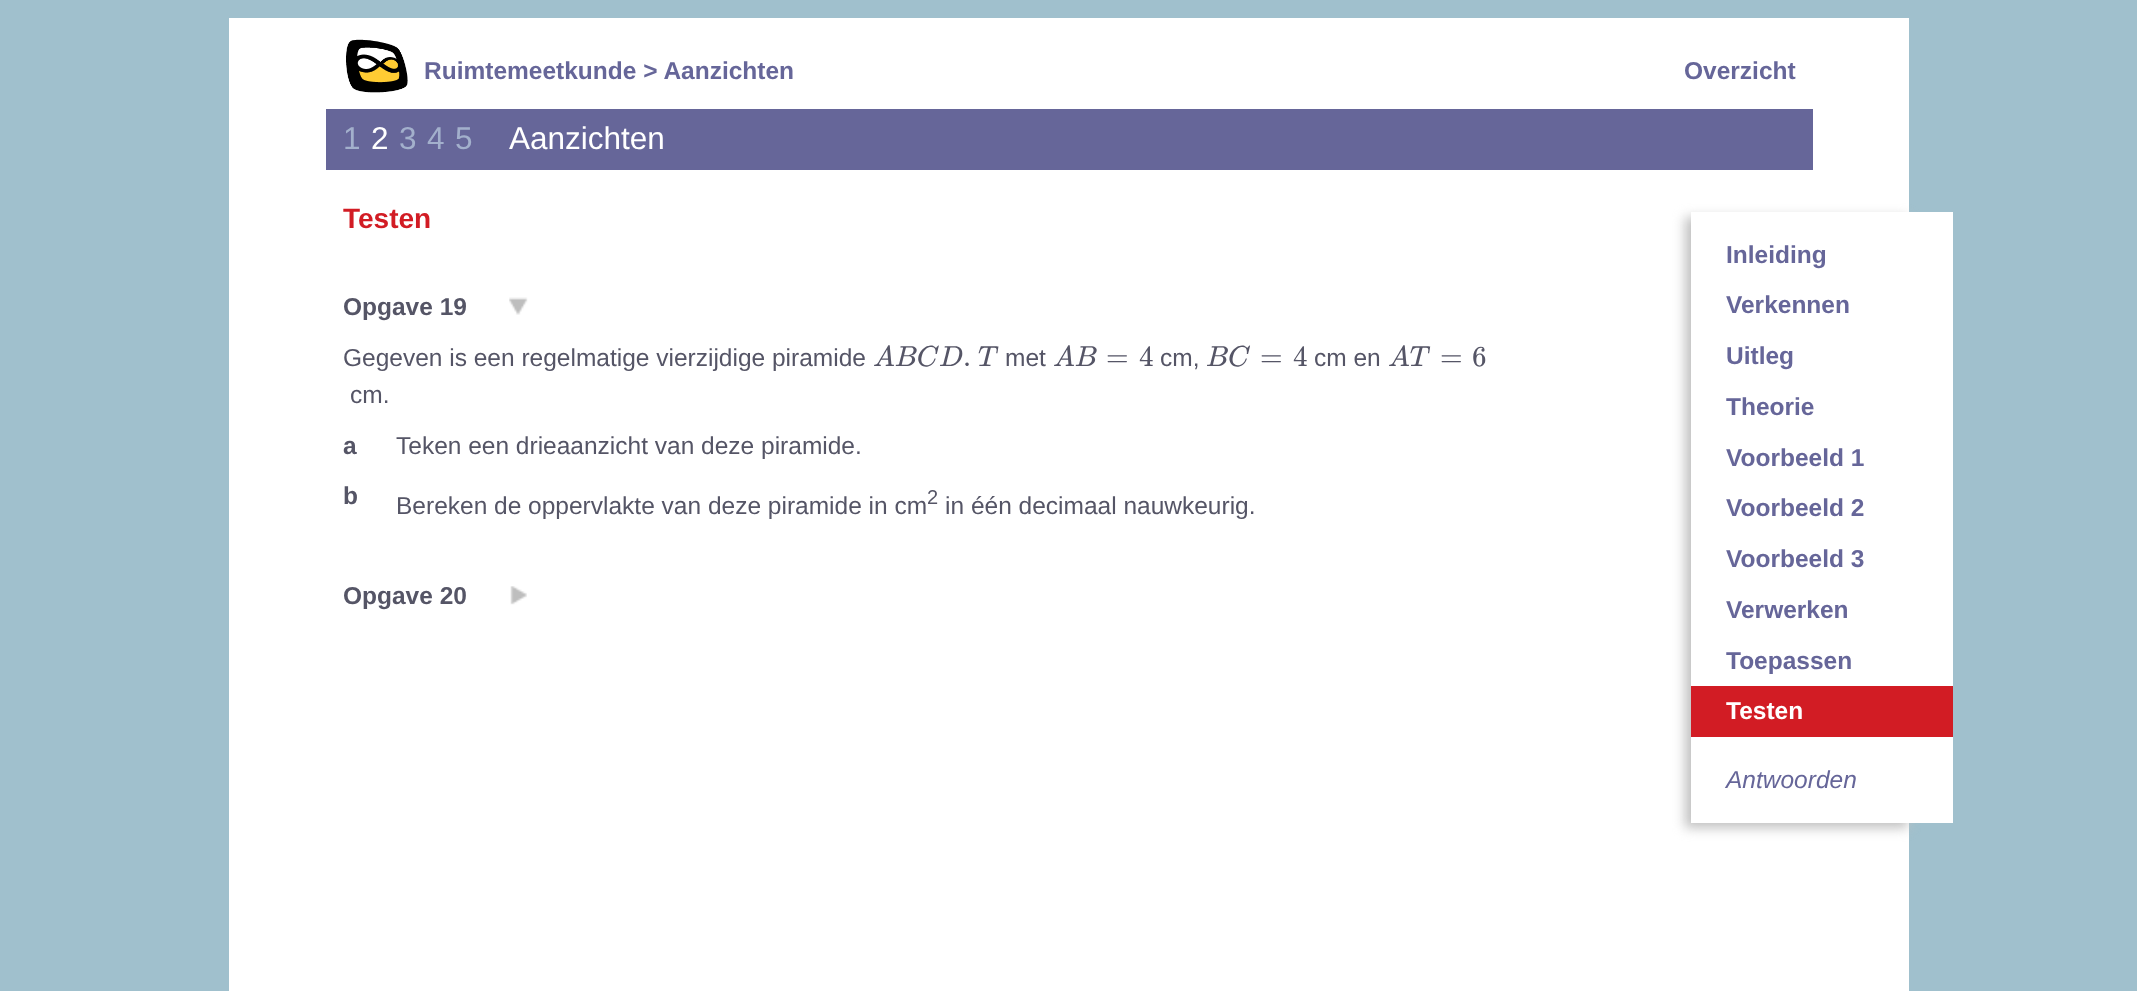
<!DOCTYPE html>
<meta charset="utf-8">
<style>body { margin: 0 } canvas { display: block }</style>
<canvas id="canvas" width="2137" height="991"></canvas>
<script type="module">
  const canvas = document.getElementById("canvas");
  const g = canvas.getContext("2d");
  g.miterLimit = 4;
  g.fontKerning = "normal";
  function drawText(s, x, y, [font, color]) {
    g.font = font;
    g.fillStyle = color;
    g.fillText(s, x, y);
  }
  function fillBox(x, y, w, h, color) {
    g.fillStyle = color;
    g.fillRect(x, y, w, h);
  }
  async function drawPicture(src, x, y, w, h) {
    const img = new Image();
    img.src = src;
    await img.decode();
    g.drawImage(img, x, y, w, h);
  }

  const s1 = ["bold 24.5px Liberation Sans", "#666699"];
  const s2 = ["31.5px Liberation Sans", "#A3B0CC"];
  const s3 = ["31.5px Liberation Sans", "#FFFFFF"];
  const s4 = ["bold 28px Liberation Sans", "#D21C24"];
  const s5 = ["bold 24.5px Liberation Sans", "#555566"];
  const s6 = ["24.5px Liberation Sans", "#555566"];
  const s7 = ["italic 29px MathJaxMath", "#555566"];
  const s8 = ["29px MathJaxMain", "#555566"];
  const s9 = ["20px Liberation Sans", "#555566"];
  const s10 = ["bold 24.5px Liberation Sans", "#FFFFFF"];
  const s11 = ["italic 24.5px Liberation Sans", "#666699"];

  fillBox(0, 0, 2137, 991, "#A0C0CD");
  fillBox(229, 18, 1680, 973, "#FFFFFF");
  await drawPicture("pic1.png", 346, 39, 62, 54);
  drawText("Ruimtemeetkunde > Aanzichten", 424, 79, s1);
  drawText("Overzicht", 1684, 79, s1);
  fillBox(326, 109, 1487, 61, "#666699");
  drawText("1", 343, 149, s2);
  drawText("2", 371, 149, s3);
  drawText("3", 399, 149, s2);
  drawText("4", 427, 149, s2);
  drawText("5", 455, 149, s2);
  drawText("Aanzichten", 509, 149, s3);
  drawText("Testen", 343, 228, s4);
  drawText("Opgave 19", 343, 315, s5);
  await drawPicture("pic2.png", 509, 297, 19, 18);
  drawText("Gegeven is een regelmatige vierzijdige piramide", 343, 366, s6);
  drawText("ABC", 873, 366, s7);
  drawText("D", 939, 366, s7);
  drawText(".", 963, 366, s8);
  drawText("T", 978, 366, s7);
  drawText("met", 1005, 366, s6);
  drawText("AB", 1053, 366, s7);
  drawText("=", 1106, 366, s8);
  drawText("4", 1139, 366, s8);
  drawText("cm,", 1160, 366, s6);
  drawText("BC", 1206, 366, s7);
  drawText("=", 1260, 366, s8);
  drawText("4", 1293, 366, s8);
  drawText("cm en", 1314, 366, s6);
  drawText("AT", 1388, 366, s7);
  drawText("=", 1440, 366, s8);
  drawText("6", 1472, 366, s8);
  drawText("cm.", 350, 403, s6);
  drawText("a", 343, 454, s5);
  drawText("Teken een drieaanzicht van deze piramide.", 396, 454, s6);
  drawText("b", 343, 504, s5);
  drawText("Bereken de oppervlakte van deze piramide in cm", 396, 514, s6);
  drawText("2", 927, 504, s9);
  drawText("in één decimaal nauwkeurig.", 945, 514, s6);
  drawText("Opgave 20", 343, 604, s5);
  await drawPicture("pic3.png", 510, 586, 17, 19);
  g.fillStyle = "#C0C0C0";
  g.filter = "blur(6px)";
  g.beginPath();
  g.rect(1685, 217, 223, 611);
  g.fill();
  g.filter = "none";
  fillBox(1691, 212, 262, 611, "#FFFFFF");
  drawText("Inleiding", 1726, 263, s1);
  drawText("Verkennen", 1726, 313, s1);
  drawText("Uitleg", 1726, 364, s1);
  drawText("Theorie", 1726, 415, s1);
  drawText("Voorbeeld 1", 1726, 466, s1);
  drawText("Voorbeeld 2", 1726, 516, s1);
  drawText("Voorbeeld 3", 1726, 567, s1);
  drawText("Verwerken", 1726, 618, s1);
  drawText("Toepassen", 1726, 669, s1);
  fillBox(1691, 686, 262, 51, "#D21C24");
  drawText("Testen", 1726, 719, s10);
  drawText("Antwoorden", 1726, 788, s11);
</script>
